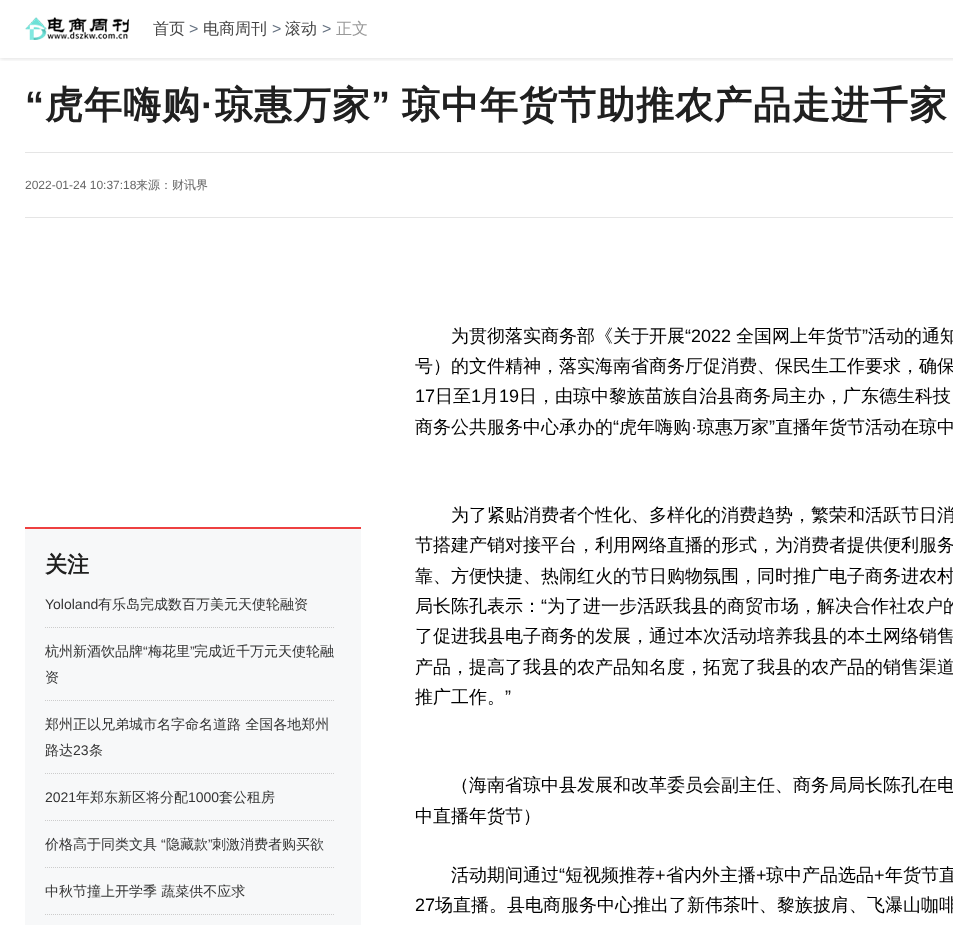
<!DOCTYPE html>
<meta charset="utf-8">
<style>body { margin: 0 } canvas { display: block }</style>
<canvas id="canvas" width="953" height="928"></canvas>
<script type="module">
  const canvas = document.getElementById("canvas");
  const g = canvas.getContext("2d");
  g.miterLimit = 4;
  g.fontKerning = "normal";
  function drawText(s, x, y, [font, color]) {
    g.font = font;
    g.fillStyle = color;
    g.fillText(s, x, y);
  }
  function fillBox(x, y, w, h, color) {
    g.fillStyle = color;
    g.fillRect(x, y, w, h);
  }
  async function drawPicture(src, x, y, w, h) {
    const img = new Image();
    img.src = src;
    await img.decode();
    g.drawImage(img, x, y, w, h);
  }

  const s1 = ["500 16px WenQuanYi Zen Hei", "#444444"];
  const s2 = ["16px Liberation Sans", "#657180"];
  const s3 = ["500 16px WenQuanYi Zen Hei", "#999999"];
  const s4 = ["bold 38px Liberation Sans", "#202020"];
  const s5 = ["bold 38px WenQuanYi Zen Hei", "#202020"];
  const s6 = ["12px Liberation Sans", "#666666"];
  const s7 = ["500 12px WenQuanYi Zen Hei", "#666666"];
  const s8 = ["bold 22px WenQuanYi Zen Hei", "#202020"];
  const s9 = ["14px Liberation Sans", "#333333"];
  const s10 = ["500 14px WenQuanYi Zen Hei", "#333333"];
  const s11 = ["500 18px WenQuanYi Zen Hei", "#000000"];
  const s12 = ["18px Liberation Sans", "#000000"];

  fillBox(0, 0, 953, 928, "#FFFFFF");
  g.save();
  g.beginPath();
  g.rect(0, 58, 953, 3);
  g.clip();
  g.fillStyle = "rgba(0, 0, 0, 0.12)";
  g.filter = "blur(2px)";
  g.beginPath();
  g.rect(0, 1, 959, 58);
  g.fill();
  g.filter = "none";
  g.restore();
  await drawPicture("pic1.png", 25, 17, 104, 23);
  drawText("首页", 153, 34, s1);
  drawText(">", 189, 34, s2);
  drawText("电商周刊", 203, 34, s1);
  drawText(">", 272, 34, s2);
  drawText("滚动", 285, 34, s1);
  drawText(">", 322, 34, s2);
  drawText("正文", 336, 34, s3);
  g.letterSpacing = "1px";
  drawText("“", 25, 118, s4);
  drawText("虎年嗨购", 45, 118, s5);
  drawText("琼惠万家", 215, 118, s5);
  drawText("”", 371, 118, s4);
  drawText("琼中年货节助推农产品走进千家", 402, 118, s5);
  drawText("·", 201, 118, s4);
  fillBox(25, 152, 928, 1, "#E5E5E5");
  fillBox(25, 217, 928, 1, "#E5E5E5");
  g.letterSpacing = "0px";
  drawText("2022-01-24 10:37:18", 25, 189, s6);
  drawText("来源：财讯界", 136, 189, s7);
  fillBox(25, 529, 336, 396, "#F7F8F9");
  fillBox(25, 527, 336, 2, "#EE4040");
  drawText("关注", 45, 572, s8);
  g.beginPath();
  g.moveTo(45, 627.5);
  g.lineTo(335, 627.5);
  g.strokeStyle = "#CCCCCC";
  g.setLineDash([1, 1]);
  g.stroke();
  drawText("Yololand", 45, 609, s9);
  drawText("有乐岛完成数百万美元天使轮融资", 98, 609, s10);
  g.beginPath();
  g.moveTo(45, 700.5);
  g.lineTo(335, 700.5);
  g.stroke();
  drawText("杭州新酒饮品牌", 45, 656, s10);
  drawText("“", 143, 656, s9);
  drawText("梅花里", 148, 656, s10);
  drawText("”", 190, 656, s9);
  drawText("完成近千万元天使轮融", 194, 656, s10);
  drawText("资", 45, 682, s10);
  g.beginPath();
  g.moveTo(45, 773.5);
  g.lineTo(335, 773.5);
  g.stroke();
  drawText("郑州正以兄弟城市名字命名道路 全国各地郑州", 45, 729, s10);
  drawText("路达", 45, 755, s10);
  drawText("23", 73, 755, s9);
  drawText("条", 89, 755, s10);
  g.beginPath();
  g.moveTo(45, 820.5);
  g.lineTo(335, 820.5);
  g.stroke();
  drawText("2021", 45, 802, s9);
  drawText("年郑东新区将分配", 76, 802, s10);
  drawText("1000", 188, 802, s9);
  drawText("套公租房", 219, 802, s10);
  g.beginPath();
  g.moveTo(45, 867.5);
  g.lineTo(335, 867.5);
  g.stroke();
  drawText("价格高于同类文具", 45, 849, s10);
  drawText("“", 161, 849, s9);
  drawText("隐藏款", 166, 849, s10);
  drawText("”", 208, 849, s9);
  drawText("刺激消费者购买欲", 212, 849, s10);
  g.beginPath();
  g.moveTo(45, 914.5);
  g.lineTo(335, 914.5);
  g.stroke();
  drawText("中秋节撞上开学季 蔬菜供不应求", 45, 896, s10);
  drawText("为贯彻落实商务部《关于开展", 451, 342, s11);
  drawText("“2022", 685, 342, s12);
  drawText("全国网上年货节", 736, 342, s11);
  drawText("”", 862, 342, s12);
  drawText("活动的通知", 868, 342, s11);
  drawText("号）的文件精神，落实海南省商务厅促消费、保民生工作要求，确保", 415, 372, s11);
  drawText("17", 415, 402, s12);
  drawText("日至", 435, 402, s11);
  drawText("1", 471, 402, s12);
  drawText("月", 481, 402, s11);
  drawText("19", 499, 402, s12);
  drawText("日，由琼中黎族苗族自治县商务局主办，广东德生科技", 519, 402, s11);
  drawText("商务公共服务中心承办的", 415, 433, s11);
  drawText("“", 613, 433, s12);
  drawText("虎年嗨购", 619, 433, s11);
  drawText("琼惠万家", 697, 433, s11);
  drawText("”", 769, 433, s12);
  drawText("直播年货节活动在琼中", 775, 433, s11);
  drawText("·", 691, 433, s12);
  drawText("为了紧贴消费者个性化、多样化的消费趋势，繁荣和活跃节日消", 451, 521, s11);
  drawText("节搭建产销对接平台，利用网络直播的形式，为消费者提供便利服务", 415, 551, s11);
  drawText("靠、方便快捷、热闹红火的节日购物氛围，同时推广电子商务进农村", 415, 582, s11);
  drawText("局长陈孔表示：", 415, 612, s11);
  drawText("“", 541, 612, s12);
  drawText("为了进一步活跃我县的商贸市场，解决合作社农户的", 547, 612, s11);
  drawText("了促进我县电子商务的发展，通过本次活动培养我县的本土网络销售", 415, 642, s11);
  drawText("产品，提高了我县的农产品知名度，拓宽了我县的农产品的销售渠道", 415, 673, s11);
  drawText("推广工作。", 415, 703, s11);
  drawText("”", 505, 703, s12);
  drawText("（海南省琼中县发展和改革委员会副主任、商务局局长陈孔在电", 451, 791, s11);
  drawText("中直播年货节）", 415, 822, s11);
  drawText("活动期间通过", 451, 881, s11);
  drawText("“", 559, 881, s12);
  drawText("短视频推荐", 565, 881, s11);
  drawText("+", 655, 881, s12);
  drawText("省内外主播", 666, 881, s11);
  drawText("+", 756, 881, s12);
  drawText("琼中产品选品", 766, 881, s11);
  drawText("+", 874, 881, s12);
  drawText("年货节直", 885, 881, s11);
  drawText("27", 415, 911, s12);
  drawText("场直播。县电商服务中心推出了新伟茶叶、黎族披肩、飞瀑山咖啡", 435, 911, s11);
</script>
